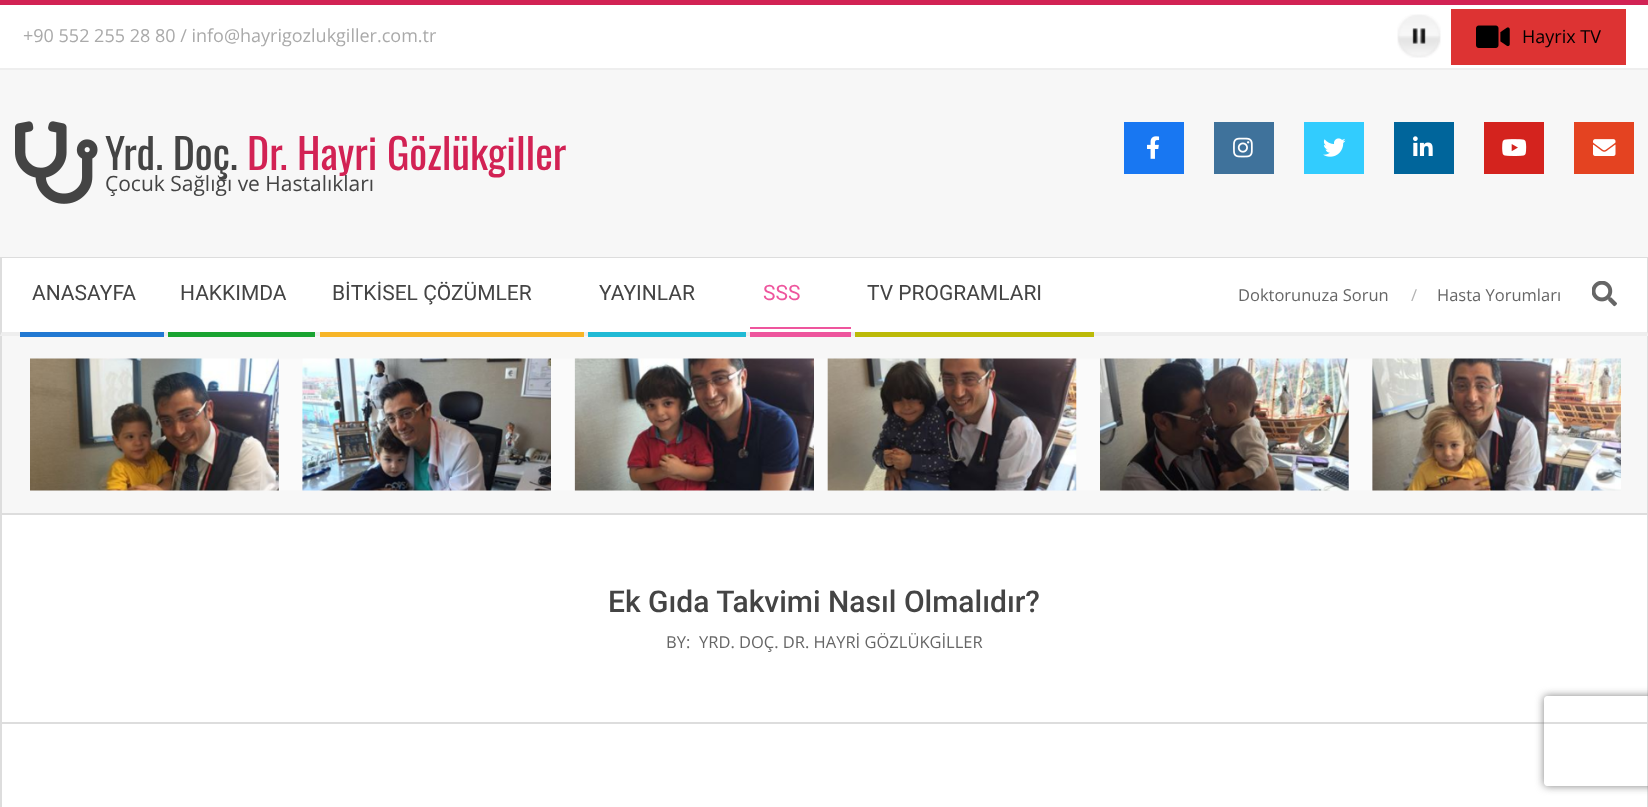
<!DOCTYPE html>
<meta charset="utf-8">
<style>body { margin: 0 } canvas { display: block }</style>
<canvas id="canvas" width="1648" height="807"></canvas>
<script type="module">
  const canvas = document.getElementById("canvas");
  const g = canvas.getContext("2d");
  g.miterLimit = 4;
  g.fontKerning = "normal";
  function drawText(s, x, y, [font, color]) {
    g.font = font;
    g.fillStyle = color;
    g.fillText(s, x, y);
  }
  function fillBox(x, y, w, h, color) {
    g.fillStyle = color;
    g.fillRect(x, y, w, h);
  }
  async function drawPicture(src, x, y, w, h) {
    const img = new Image();
    img.src = src;
    await img.decode();
    g.drawImage(img, x, y, w, h);
  }

  const s1 = ["18px Open Sans", "#AAAAAA"];
  const s2 = ["18px Open Sans", "#000000"];
  const s3 = ["42px Oswald", "#444444"];
  const s4 = ["42px Oswald", "#D22254"];
  const s5 = ["21px Open Sans", "#444444"];
  const s6 = ["21px Roboto", "#444444"];
  const s7 = ["21px Roboto", "#EE559D"];
  const s8 = ["16.5px Open Sans", "#666666"];
  const s9 = ["16.5px Open Sans", "#B3B3B3"];
  const s10 = ["500 30px Roboto", "#444444"];

  fillBox(0, 0, 1648, 807, "#F7F7F7");
  fillBox(0, 0, 1648, 5, "#D22254");
  fillBox(0, 5, 1648, 63, "#FFFFFF");
  fillBox(0, 68, 1648, 2, "#EEEEEE");
  drawText("+90 552 255 28 80 / info@hayrigozlukgiller.com.tr", 23, 42, s1);
  await drawPicture("pic1.png", 1397, 14, 44, 44);
  fillBox(1451, 9, 175, 56, "#DD3333");
  await drawPicture("pic2.png", 1476, 25, 34, 23);
  drawText("Hayrix TV", 1522, 43, s2);
  fillBox(0, 257, 1648, 1, "#DDDDDD");
  await drawPicture("pic3.png", 15, 121, 83, 83);
  drawText("Yrd. Doç.", 105, 170, s3);
  drawText("Dr. Hayri Gözlükgiller", 247, 170, s4);
  drawText("Çocuk Sağlığı ve Hastalıkları", 105, 191, s5);
  fillBox(1124, 122, 60, 52, "#1877F2");
  await drawPicture("pic4.png", 1147, 136, 13, 23);
  fillBox(1214, 122, 60, 52, "#3F729B");
  await drawPicture("pic5.png", 1233, 137, 20, 21);
  fillBox(1304, 122, 60, 52, "#32CCFE");
  await drawPicture("pic6.png", 1323, 138, 23, 19);
  fillBox(1394, 122, 60, 52, "#00659B");
  await drawPicture("pic7.png", 1413, 136, 20, 20);
  fillBox(1484, 122, 60, 52, "#D4231E");
  await drawPicture("pic8.png", 1502, 139, 25, 17);
  fillBox(1574, 122, 60, 52, "#E44321");
  await drawPicture("pic9.png", 1593, 139, 23, 17);
  fillBox(0, 258, 1648, 78, "#FFFFFF");
  g.fillStyle = "#DDDDDD";
  g.beginPath();
  g.moveTo(1648, 258);
  g.lineTo(1648, 336);
  g.lineTo(1647, 332);
  g.lineTo(1647, 258);
  g.closePath();
  g.fill();
  g.fillStyle = "#EEEEEE";
  g.beginPath();
  g.moveTo(1648, 336);
  g.lineTo(0, 336);
  g.lineTo(2, 332);
  g.lineTo(1647, 332);
  g.closePath();
  g.fill();
  g.fillStyle = "#DDDDDD";
  g.beginPath();
  g.moveTo(0, 336);
  g.lineTo(0, 258);
  g.lineTo(2, 258);
  g.lineTo(2, 332);
  g.closePath();
  g.fill();
  drawText("ANASAYFA", 32, 300, s6);
  fillBox(20, 332, 144, 5, "#2279D2");
  drawText("HAKKIMDA", 180, 300, s6);
  fillBox(168, 332, 147, 5, "#1AA331");
  drawText("BİTKİSEL ÇÖZÜMLER", 332, 300, s6);
  fillBox(320, 332, 264, 5, "#F7B528");
  drawText("YAYINLAR", 599, 300, s6);
  fillBox(588, 332, 158, 5, "#21BAD5");
  drawText("SSS", 763, 300, s7);
  fillBox(750, 327, 101, 2, "#EE559D");
  fillBox(750, 332, 101, 5, "#EE559D");
  drawText("TV PROGRAMLARI", 867, 300, s6);
  fillBox(855, 332, 239, 5, "#BCBA08");
  drawText("Doktorunuza Sorun", 1238, 301, s8);
  drawText("/", 1411, 301, s9);
  drawText("Hasta Yorumları", 1437, 301, s8);
  await drawPicture("pic10.png", 1592, 281, 25, 26);
  fillBox(1647, 336, 1, 471, "#DDDDDD");
  fillBox(0, 513, 1648, 2, "#DDDDDD");
  fillBox(0, 336, 2, 471, "#DDDDDD");
  await drawPicture("pic11.png", 30, 358, 1591, 133);
  fillBox(2, 515, 1645, 292, "#FFFFFF");
  fillBox(2, 722, 1645, 2, "#DDDDDD");
  drawText("Ek Gıda Takvimi Nasıl Olmalıdır?", 608, 612, s10);
  drawText("BY:", 666, 648, s8);
  drawText("YRD. DOÇ. DR. HAYRİ GÖZLÜKGİLLER", 699, 648, s8);
  g.save();
  g.beginPath();
  g.moveTo(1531, 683);
  g.lineTo(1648, 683);
  g.lineTo(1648, 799);
  g.lineTo(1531, 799);
  g.closePath();
  g.moveTo(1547, 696);
  g.lineTo(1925, 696);
  g.bezierCurveTo(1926.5, 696, 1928, 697.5, 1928, 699);
  g.lineTo(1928, 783);
  g.bezierCurveTo(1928, 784.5, 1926.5, 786, 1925, 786);
  g.lineTo(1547, 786);
  g.bezierCurveTo(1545.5, 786, 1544, 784.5, 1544, 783);
  g.lineTo(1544, 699);
  g.bezierCurveTo(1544, 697.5, 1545.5, 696, 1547, 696);
  g.closePath();
  g.clip("evenodd");
  g.fillStyle = "#808080";
  g.filter = "blur(4px)";
  g.beginPath();
  g.roundRect(1544, 696, 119, 90, 3);
  g.fill();
  g.filter = "none";
  g.restore();
</script>
